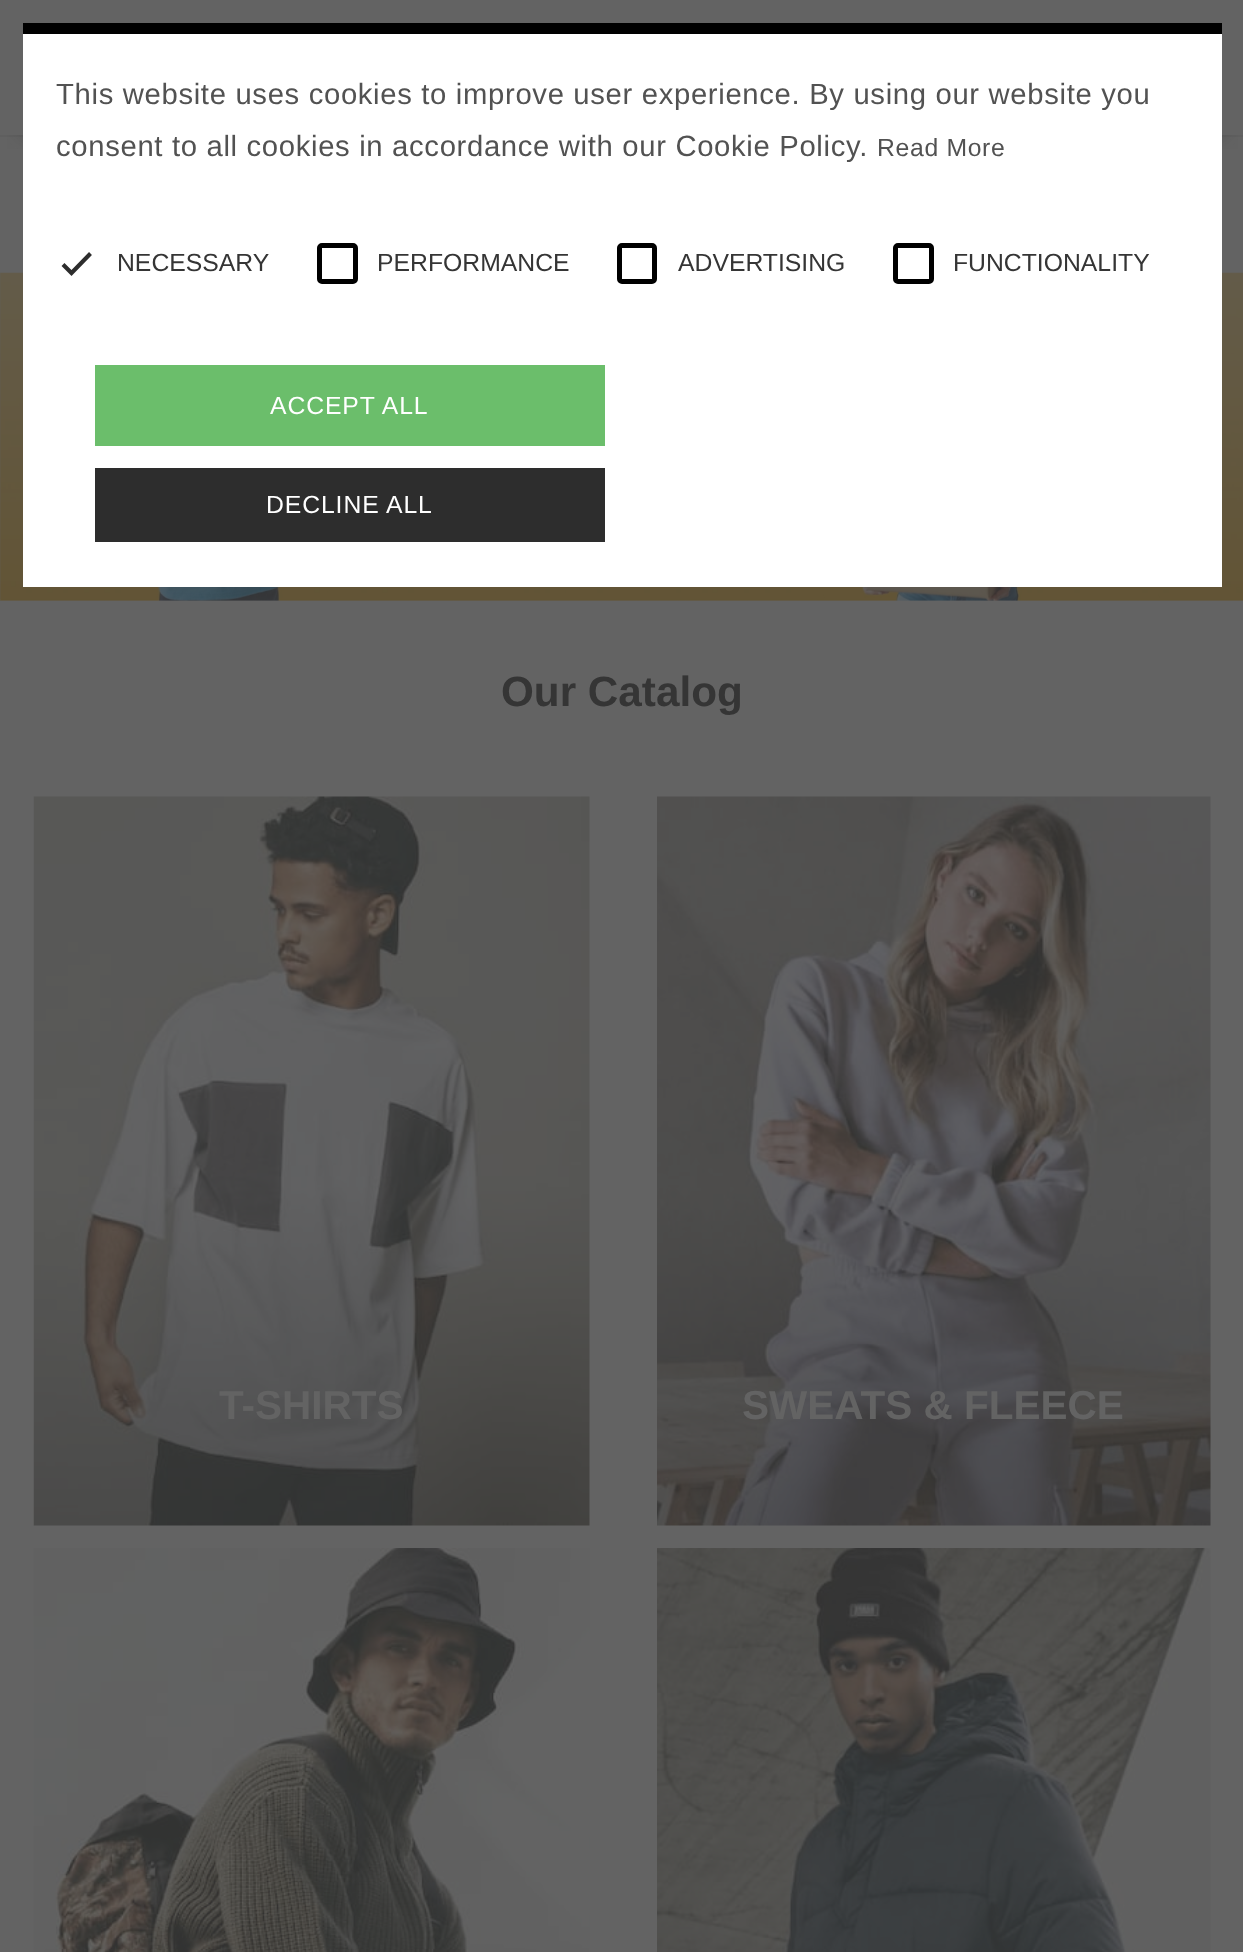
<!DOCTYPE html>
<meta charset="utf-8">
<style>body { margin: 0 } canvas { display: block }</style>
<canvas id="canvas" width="1243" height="1952"></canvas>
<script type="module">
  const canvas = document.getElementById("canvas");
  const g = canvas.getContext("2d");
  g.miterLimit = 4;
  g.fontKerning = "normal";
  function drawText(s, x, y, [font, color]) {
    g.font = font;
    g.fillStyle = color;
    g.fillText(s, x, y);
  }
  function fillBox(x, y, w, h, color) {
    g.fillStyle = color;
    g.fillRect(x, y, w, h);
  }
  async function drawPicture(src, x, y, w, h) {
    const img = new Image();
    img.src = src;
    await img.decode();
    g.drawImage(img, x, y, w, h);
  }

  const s1 = ["29.25px Liberation Sans", "#525252"];
  const s2 = ["24.75px Liberation Sans", "#525252"];
  const s3 = ["24.75px Liberation Sans", "#353535"];
  const s4 = ["24.75px Liberation Sans", "#FFFFFF"];
  const s5 = ["bold 42.25px Liberation Sans", "#353535"];
  const s6 = ["bold 40.5px Liberation Sans", "#636363"];

  fillBox(0, 0, 1243, 1952, "#636363");
  fillBox(0, 135, 1243, 2, "#5F5F5F");
  g.save();
  g.beginPath();
  g.rect(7, 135, 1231, 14);
  g.clip();
  g.fillStyle = "#323232";
  g.filter = "blur(12.5px)";
  g.beginPath();
  g.rect(25, 43, 1195, 85);
  g.fill();
  g.filter = "none";
  g.restore();
  await drawPicture("pic1.png", 0, 272, 1243, 329);
  fillBox(23, 34, 1199, 553, "#FFFFFF");
  fillBox(23, 23, 1199, 11, "#000000");
  g.letterSpacing = "0.67px";
  drawText("This website uses cookies to improve user experience. By using our website you", 56, 104, s1);
  drawText("consent to all cookies in accordance with our Cookie Policy.", 56, 156, s1);
  drawText("Read More", 877, 156, s2);
  g.beginPath();
  g.moveTo(63, 264.5);
  g.lineTo(71.5, 273);
  g.lineTo(90.5, 253.5);
  g.strokeStyle = "#2D2D2D";
  g.lineWidth = 4.1;
  g.stroke();
  g.letterSpacing = "0px";
  drawText("NECESSARY", 117, 271, s3);
  g.beginPath();
  g.roundRect(319.5, 245.5, 36, 36, 2.5);
  g.strokeStyle = "#000000";
  g.lineWidth = 5;
  g.stroke();
  drawText("PERFORMANCE", 377, 271, s3);
  g.beginPath();
  g.roundRect(619.5, 245.5, 35, 36, 2.5);
  g.stroke();
  drawText("ADVERTISING", 678, 271, s3);
  g.beginPath();
  g.roundRect(895.5, 245.5, 36, 36, 2.5);
  g.stroke();
  drawText("FUNCTIONALITY", 953, 271, s3);
  fillBox(95, 365, 510, 81, "#6BBE6B");
  g.letterSpacing = "0.9px";
  drawText("ACCEPT ALL", 270, 414, s4);
  fillBox(95, 468, 510, 74, "#2D2D2D");
  drawText("DECLINE ALL", 266, 513, s4);
  g.letterSpacing = "0px";
  drawText("Our Catalog", 501, 706, s5);
  await drawPicture("pic2.png", 33, 796, 557, 730);
  drawText("T-SHIRTS", 219, 1419, s6);
  await drawPicture("pic3.png", 657, 796, 554, 730);
  drawText("SWEATS & FLEECE", 742, 1419, s6);
  await drawPicture("pic4.png", 33, 1548, 557, 404);
  await drawPicture("pic5.png", 657, 1548, 554, 404);
</script>
